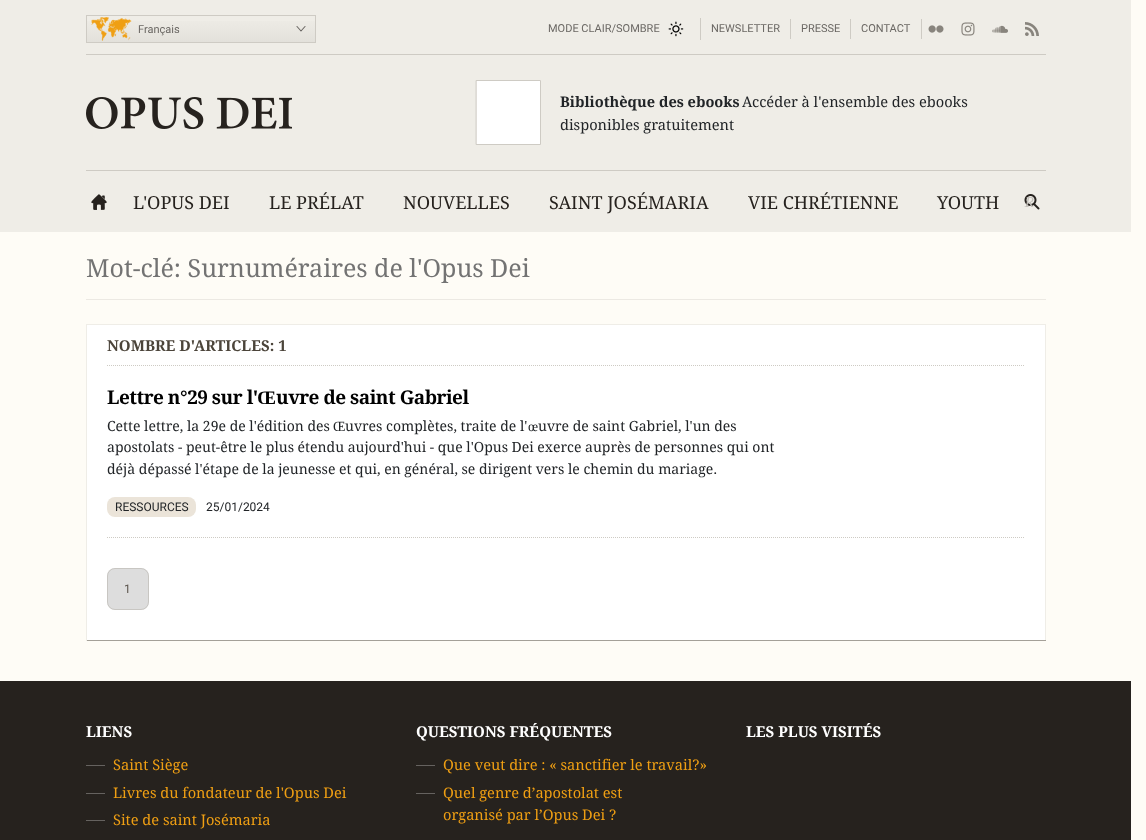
<!DOCTYPE html>
<meta charset="utf-8">
<style>body { margin: 0 } canvas { display: block }</style>
<canvas id="canvas" width="1146" height="840"></canvas>
<script type="module">
  const canvas = document.getElementById("canvas");
  const g = canvas.getContext("2d");
  g.miterLimit = 4;
  g.fontKerning = "normal";
  function drawText(s, x, y, [font, color]) {
    g.font = font;
    g.fillStyle = color;
    g.fillText(s, x, y);
  }
  function fillBox(x, y, w, h, color) {
    g.fillStyle = color;
    g.fillRect(x, y, w, h);
  }
  function fillRounded(x, y, w, h, r, color) {
    g.fillStyle = color;
    g.beginPath();
    g.roundRect(x, y, w, h, r);
    g.fill();
  }
  async function drawPicture(src, x, y, w, h) {
    const img = new Image();
    img.src = src;
    await img.decode();
    g.drawImage(img, x, y, w, h);
  }
  let gradient;

  const s1 = ["11px Roboto", "#6B6864"];
  const s2 = ["bold 14.6px Droid Serif", "#212427"];
  const s3 = ["14.6px Droid Serif", "#212427"];
  const s4 = ["18px Droid Serif", "#26221E"];
  const s5 = ["italic 14px Droid Serif", "#C2BFBA"];
  const s6 = ["25px Droid Serif", "#737373"];
  const s7 = ["bold 15px Droid Serif", "#4B443A"];
  const s8 = ["bold 19px Droid Serif", "#000000"];
  const s9 = ["bold 19px Liberation Serif", "#000000"];
  const s10 = ["14px Droid Serif", "#212427"];
  const s11 = ["14px Liberation Serif", "#212427"];
  const s12 = ["12px Roboto", "#212427"];
  const s13 = ["12px Roboto", "#5B544C"];
  const s14 = ["bold 15px Droid Serif", "#FFFFFF"];
  const s15 = ["14.6px Droid Serif", "#EF9F13"];

  fillBox(0, 0, 1146, 840, "#FEFCF6");
  fillBox(0, 0, 1131, 232, "#EFEDE7");
  fillBox(86, 54, 960, 1, "#CECBC4");
  gradient = g.createLinearGradient(201, 16, 201, 42);
  gradient.addColorStop(0, "#EFEDE7");
  gradient.addColorStop(1, "#E3E1DB");
  g.fillStyle = gradient;
  g.fillRect(87, 21, 228, 21);
  g.strokeStyle = "#CECBC4";
  g.strokeRect(86.5, 15.5, 229, 27);
  await drawPicture("pic1.png", 91, 17, 41, 24);
  g.beginPath();
  g.moveTo(305, 26.5);
  g.lineTo(301, 31);
  g.lineTo(297, 26.5);
  g.strokeStyle = "#6B6864";
  g.lineWidth = 1.1;
  g.lineCap = "round";
  g.lineJoin = "round";
  g.stroke();
  drawText("Français", 138, 33, s1);
  fillBox(700, 18, 1, 22, "#CECBC4");
  drawText("MODE CLAIR/SOMBRE", 548, 32, s1);
  await drawPicture("pic2.png", 668, 21, 16, 16);
  fillBox(790, 19, 1, 20, "#CECBC4");
  drawText("NEWSLETTER", 711, 32, s1);
  fillBox(850, 19, 1, 20, "#CECBC4");
  drawText("PRESSE", 801, 32, s1);
  fillBox(921, 19, 1, 20, "#CECBC4");
  drawText("CONTACT", 861, 32, s1);
  await drawPicture("pic3.png", 928, 25, 16, 8);
  await drawPicture("pic4.png", 961, 22, 14, 14);
  await drawPicture("pic5.png", 992, 25, 16, 8);
  await drawPicture("pic6.png", 1025, 22, 14, 14);
  fillBox(86, 170, 960, 1, "#CECBC4");
  await drawPicture("pic7.png", 86, 97, 206, 32);
  g.fillStyle = "#FFFFFF";
  g.beginPath();
  g.rect(476.5, 80.5, 64, 64);
  g.fill();
  g.strokeStyle = "#CECBC4";
  g.lineWidth = 1;
  g.lineJoin = "miter";
  g.stroke();
  drawText("Bibliothèque des ebooks", 560, 107, s2);
  drawText("Accéder à l'ensemble des ebooks", 742, 107, s3);
  drawText("disponibles gratuitement", 560, 130, s3);
  await drawPicture("pic8.png", 91, 194, 16, 16);
  drawText("L'OPUS DEI", 133, 209, s4);
  drawText("LE PRÉLAT", 269, 209, s4);
  drawText("NOUVELLES", 403, 209, s4);
  drawText("SAINT JOSÉMARIA", 549, 209, s4);
  drawText("VIE CHRÉTIENNE", 748, 209, s4);
  drawText("YOUTH", 937, 209, s4);
  await drawPicture("pic9.png", 1024, 194, 16, 16);
  drawText("R", 1025, 207, s5);
  fillBox(86, 299, 960, 1, "#ECE9E3");
  drawText("Mot-clé: Surnuméraires de l'Opus Dei", 86, 277, s6);
  fillBox(87, 325, 958, 315, "#FFFFFF");
  fillBox(86, 324, 960, 1, "#EFEDE7");
  fillBox(1045, 324, 1, 317, "#EFEDE7");
  fillBox(86, 640, 960, 1, "#A4A098");
  fillBox(86, 324, 1, 317, "#EFEDE7");
  g.beginPath();
  g.moveTo(107, 365.5);
  g.lineTo(1025, 365.5);
  g.lineCap = "butt";
  g.setLineDash([1, 1]);
  g.stroke();
  drawText("NOMBRE D'ARTICLES: 1", 107, 351, s7);
  g.beginPath();
  g.moveTo(107, 537.5);
  g.lineTo(1025, 537.5);
  g.stroke();
  g.letterSpacing = "-0.5px";
  drawText("Lettre n°29 sur l'", 107, 404, s8);
  drawText("Œ", 257, 404, s9);
  drawText("uvre de saint Gabriel", 276, 404, s8);
  g.letterSpacing = "0px";
  drawText("Cette lettre, la 29e de l'édition des", 107, 431, s10);
  drawText("Œ", 333, 431, s11);
  drawText("uvres complètes, traite de l'", 345, 431, s10);
  drawText("œ", 528, 431, s11);
  drawText("uvre de saint Gabriel, l'un des", 538, 431, s10);
  drawText("apostolats - peut-être le plus étendu aujourd'hui - que l'Opus Dei exerce auprès de personnes qui ont", 107, 452, s10);
  drawText("déjà dépassé l'étape de la jeunesse et qui, en général, se dirigent vers le chemin du mariage.", 107, 474, s10);
  fillRounded(107, 497, 89, 20, 8, "#EBE4D9");
  drawText("RESSOURCES", 115, 511, s12);
  drawText("25/01/2024", 206, 511, s12);
  fillRounded(107, 568, 42, 42, 8, "#DDDDDD");
  g.beginPath();
  g.roundRect(107.5, 568.5, 41, 41, 7.5);
  g.strokeStyle = "rgba(180, 176, 168, 0.5)";
  g.setLineDash([]);
  g.stroke();
  drawText("1", 124, 593, s13);
  fillBox(0, 681, 1131, 159, "#26221E");
  drawText("LIENS", 86, 737, s14);
  fillBox(86, 765, 19, 1, "#65625F");
  drawText("Saint Siège", 113, 770, s15);
  fillBox(86, 793, 19, 1, "#65625F");
  drawText("Livres du fondateur de l'Opus Dei", 113, 798, s15);
  fillBox(86, 820, 19, 1, "#65625F");
  drawText("Site de saint Josémaria", 113, 825, s15);
  drawText("QUESTIONS FRÉQUENTES", 416, 737, s14);
  fillBox(416, 765, 19, 1, "#65625F");
  drawText("Que veut dire : « sanctifier le travail?»", 443, 770, s15);
  fillBox(416, 793, 19, 1, "#65625F");
  drawText("Quel genre d’apostolat est", 443, 798, s15);
  drawText("organisé par l’Opus Dei ?", 443, 820, s15);
  drawText("LES PLUS VISITÉS", 746, 737, s14);
</script>
